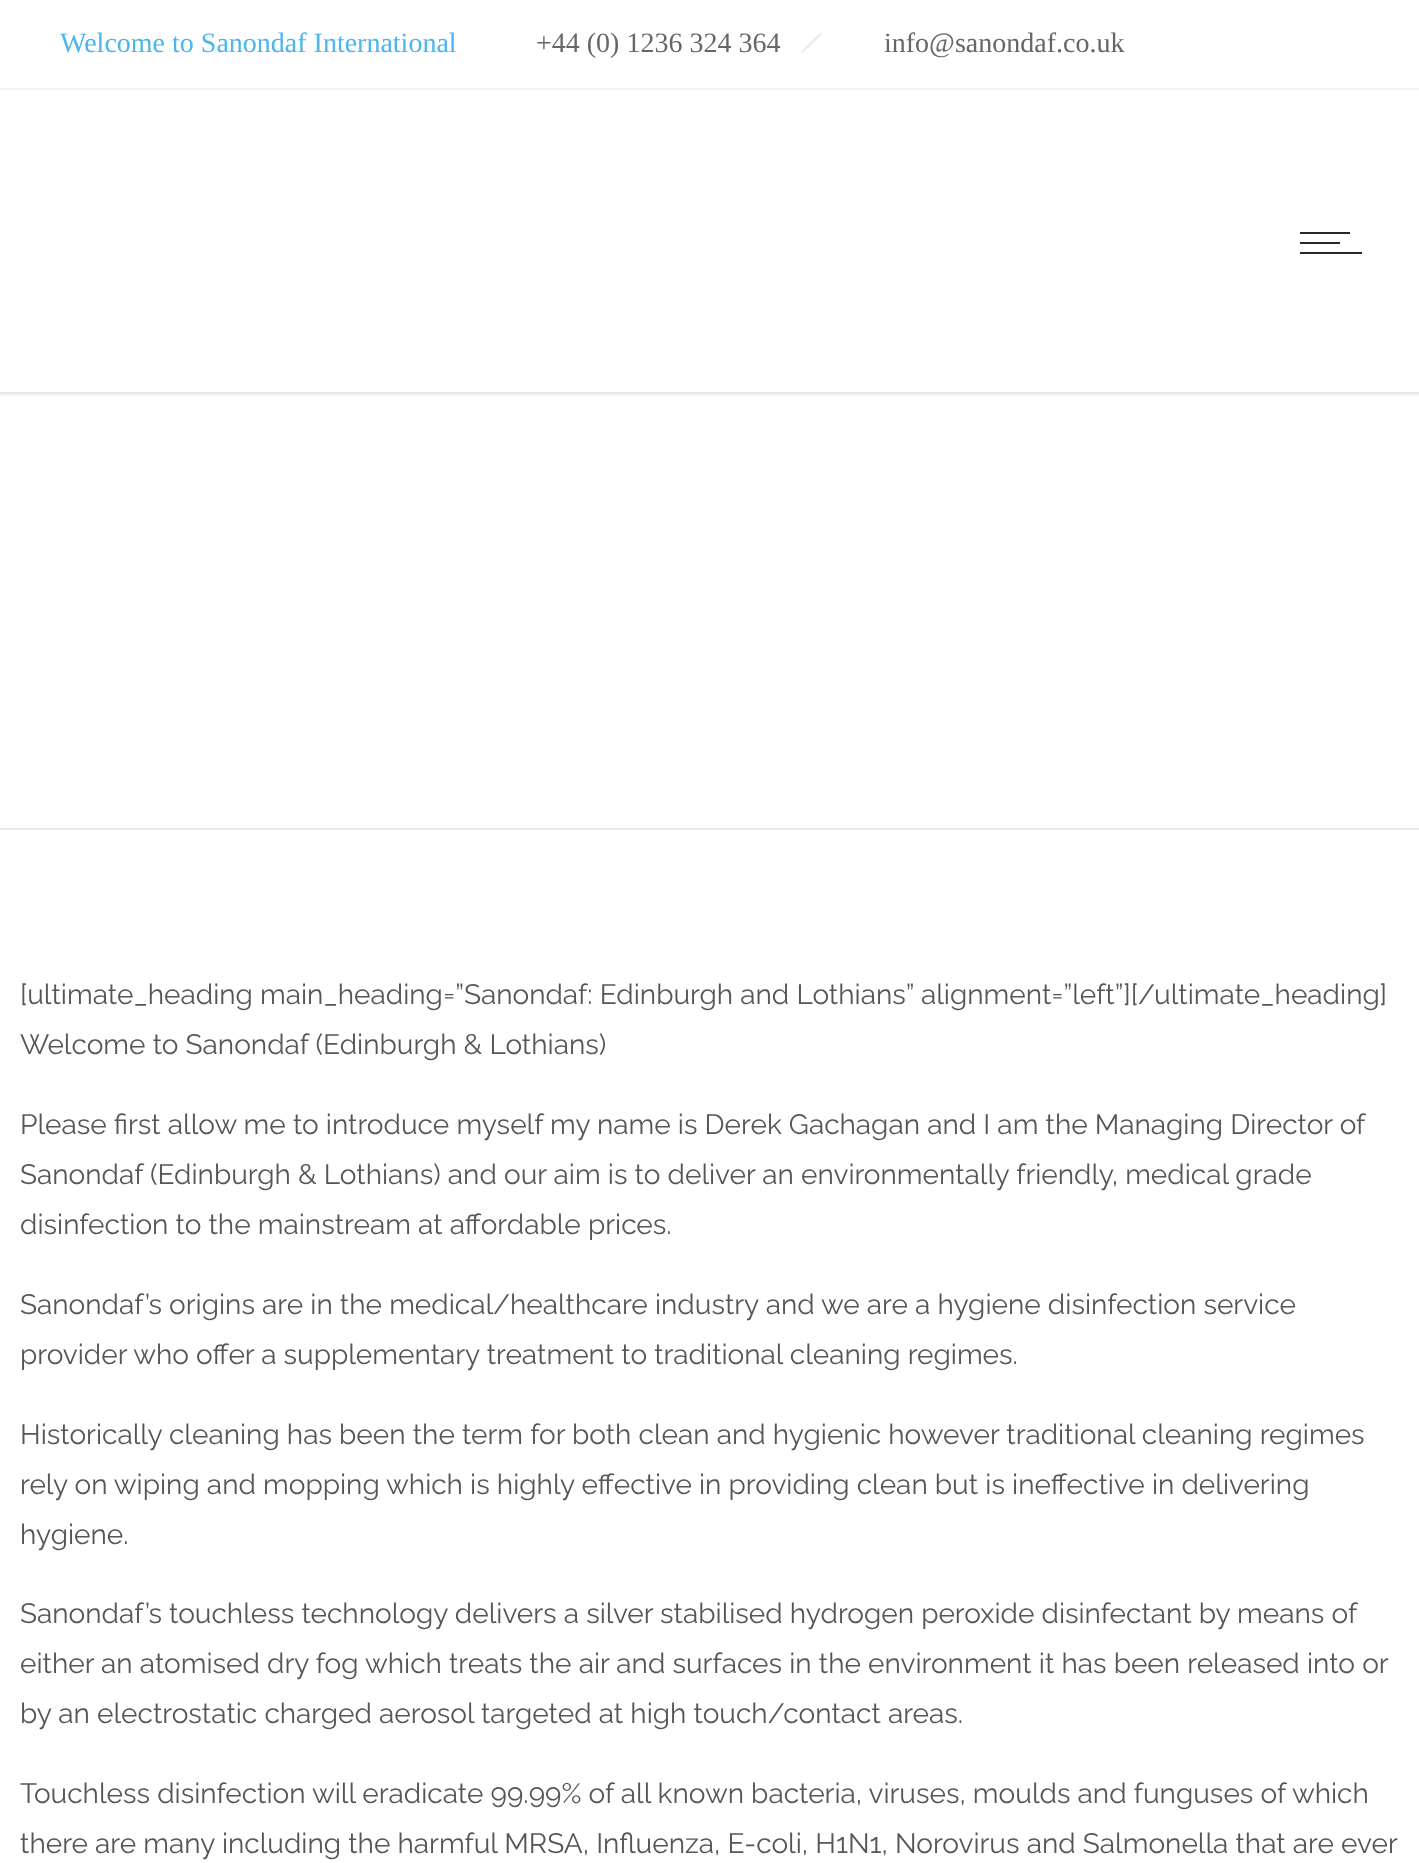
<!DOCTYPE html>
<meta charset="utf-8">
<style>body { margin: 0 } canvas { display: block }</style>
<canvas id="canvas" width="1419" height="1863"></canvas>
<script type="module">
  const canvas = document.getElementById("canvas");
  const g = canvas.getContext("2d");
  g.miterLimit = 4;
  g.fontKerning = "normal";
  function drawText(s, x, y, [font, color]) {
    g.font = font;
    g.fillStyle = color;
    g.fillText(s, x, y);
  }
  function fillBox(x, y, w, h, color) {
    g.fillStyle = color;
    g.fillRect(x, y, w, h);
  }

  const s1 = ["28px Liberation Serif", "#4BB5ED"];
  const s2 = ["28px Liberation Serif", "#676767"];
  const s3 = ["28px Raleway", "#565656"];

  fillBox(0, 0, 1419, 1863, "#FFFFFF");
  fillBox(0, 392, 1419, 2, "#EAE9EA");
  fillBox(0, 88, 1419, 2, "#F3F3F3");
  drawText("Welcome to Sanondaf International", 60, 52, s1);
  drawText("+44 (0) 1236 324 364", 536, 52, s2);
  g.fillStyle = "#EAE9EA";
  g.beginPath();
  g.moveTo(820.5, 32.5);
  g.lineTo(822, 34);
  g.lineTo(802, 53.5);
  g.lineTo(801, 52);
  g.closePath();
  g.fill();
  drawText("info@sanondaf.co.uk", 884, 52, s2);
  fillBox(1300, 232, 50, 2, "#28262B");
  fillBox(1300, 242, 40, 2, "#28262B");
  fillBox(1300, 252, 62, 2, "#28262B");
  fillBox(0, 394, 1419, 2, "#F4F4F4");
  fillBox(0, 828, 1419, 2, "#E8E8E8");
  drawText("[ultimate_heading main_heading=”Sanondaf: Edinburgh and Lothians” alignment=”left”][/ultimate_heading]", 20, 1004, s3);
  drawText("Welcome to Sanondaf (Edinburgh & Lothians)", 20, 1054, s3);
  drawText("Please first allow me to introduce myself my name is Derek Gachagan and I am the Managing Director of", 20, 1134, s3);
  drawText("Sanondaf (Edinburgh & Lothians) and our aim is to deliver an environmentally friendly, medical grade", 20, 1184, s3);
  drawText("disinfection to the mainstream at affordable prices.", 20, 1234, s3);
  drawText("Sanondaf’s origins are in the medical/healthcare industry and we are a hygiene disinfection service", 20, 1314, s3);
  drawText("provider who offer a supplementary treatment to traditional cleaning regimes.", 20, 1364, s3);
  drawText("Historically cleaning has been the term for both clean and hygienic however traditional cleaning regimes", 20, 1444, s3);
  drawText("rely on wiping and mopping which is highly effective in providing clean but is ineffective in delivering", 20, 1494, s3);
  drawText("hygiene.", 20, 1544, s3);
  drawText("Sanondaf’s touchless technology delivers a silver stabilised hydrogen peroxide disinfectant by means of", 20, 1623, s3);
  drawText("either an atomised dry fog which treats the air and surfaces in the environment it has been released into or", 20, 1673, s3);
  drawText("by an electrostatic charged aerosol targeted at high touch/contact areas.", 20, 1723, s3);
  drawText("Touchless disinfection will eradicate 99.99% of all known bacteria, viruses, moulds and funguses of which", 20, 1803, s3);
  drawText("there are many including the harmful MRSA, Influenza, E-coli, H1N1, Norovirus and Salmonella that are ever", 20, 1853, s3);
</script>
